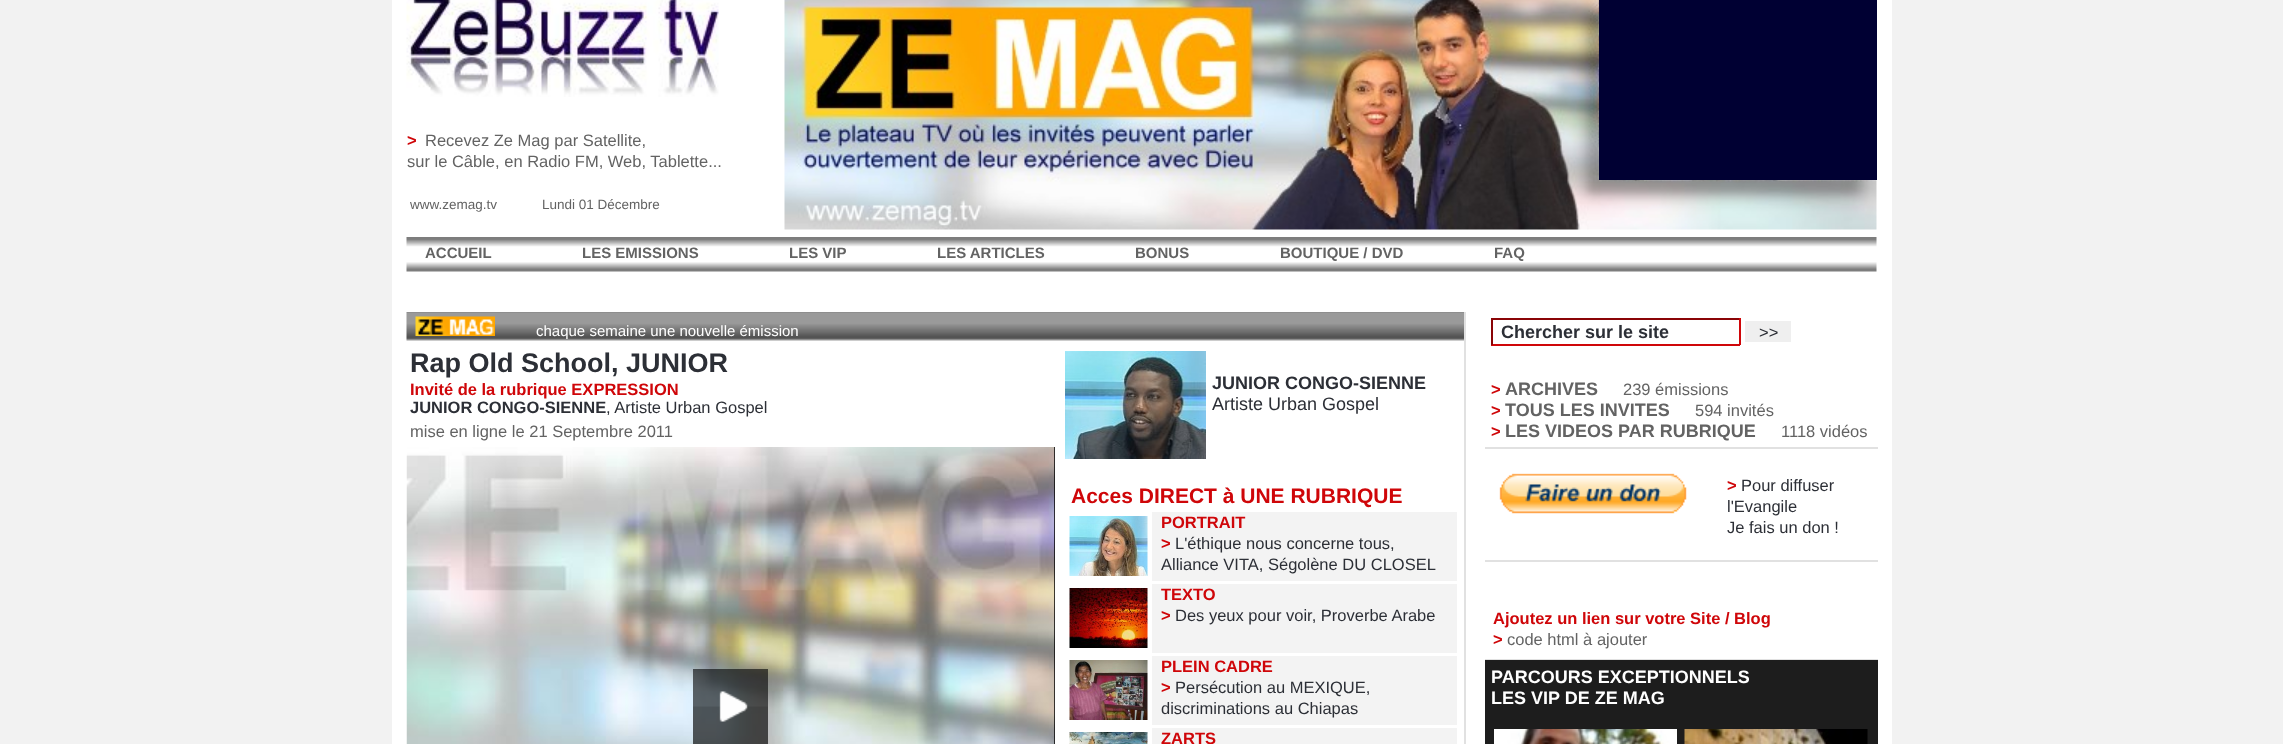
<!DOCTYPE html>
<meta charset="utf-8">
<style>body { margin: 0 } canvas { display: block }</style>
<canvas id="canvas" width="2283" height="744"></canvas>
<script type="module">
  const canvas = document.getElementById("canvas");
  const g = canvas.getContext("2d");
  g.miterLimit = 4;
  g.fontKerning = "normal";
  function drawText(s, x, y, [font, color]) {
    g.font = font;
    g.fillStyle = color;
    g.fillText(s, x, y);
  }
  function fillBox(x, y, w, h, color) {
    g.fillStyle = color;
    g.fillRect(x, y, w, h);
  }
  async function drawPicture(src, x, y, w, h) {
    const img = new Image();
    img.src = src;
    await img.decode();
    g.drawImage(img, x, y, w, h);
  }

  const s1 = ["bold 16.5px Liberation Sans", "#CF0609"];
  const s2 = ["16.5px Liberation Sans", "#636363"];
  const s3 = ["13.5px Liberation Sans", "#636363"];
  const s4 = ["bold 15px Liberation Sans", "#636363"];
  const s5 = ["15px Liberation Sans", "#FFFFFF"];
  const s6 = ["bold 27px Liberation Sans", "#2C2F36"];
  const s7 = ["bold 16.5px Liberation Sans", "#2C2F36"];
  const s8 = ["16.5px Liberation Sans", "#2C2F36"];
  const s9 = ["bold 18px Liberation Sans", "#2C2F36"];
  const s10 = ["18px Liberation Sans", "#2C2F36"];
  const s11 = ["bold 21px Liberation Sans", "#CF0609"];
  const s12 = ["bold 18px Liberation Sans", "#636363"];
  const s13 = ["bold 18px Liberation Sans", "#FFFFFF"];

  fillBox(0, 0, 2283, 744, "#F2F2F2");
  fillBox(392, 0, 1500, 744, "#FFFFFF");
  await drawPicture("pic1.png", 406, 0, 313, 97);
  drawText(">", 407, 146, s1);
  drawText("Recevez Ze Mag par Satellite,", 425, 146, s2);
  drawText("sur le Câble, en Radio FM, Web, Tablette...", 407, 167, s2);
  drawText("www.zemag.tv            Lundi 01 Décembre", 410, 209, s3);
  await drawPicture("pic2.png", 784, 0, 1093, 230);
  fillBox(1599, 0, 278, 180, "#000033");
  await drawPicture("pic3.png", 406, 237, 1471, 35);
  drawText("ACCUEIL", 425, 258, s4);
  drawText("LES EMISSIONS", 582, 258, s4);
  drawText("LES VIP", 789, 258, s4);
  drawText("LES ARTICLES", 937, 258, s4);
  drawText("BONUS", 1135, 258, s4);
  drawText("BOUTIQUE / DVD", 1280, 258, s4);
  drawText("FAQ", 1494, 258, s4);
  fillBox(1464, 312, 2, 432, "#E1E1E1");
  await drawPicture("pic4.png", 406, 312, 1058, 29);
  await drawPicture("pic5.png", 415, 316, 80, 20);
  drawText("chaque semaine une nouvelle émission", 536, 336, s5);
  drawText("Rap Old School, JUNIOR", 410, 372, s6);
  drawText("Invité de la rubrique EXPRESSION", 410, 395, s1);
  drawText("JUNIOR CONGO-SIENNE", 410, 413, s7);
  drawText(", Artiste Urban Gospel", 606, 413, s8);
  drawText("mise en ligne le 21 Septembre 2011", 410, 437, s2);
  fillBox(1054, 447, 1, 297, "#000000");
  await drawPicture("pic6.png", 406, 447, 649, 297);
  await drawPicture("pic7.png", 693, 669, 75, 75);
  await drawPicture("pic8.png", 719, 691, 29, 31);
  await drawPicture("pic9.png", 1065, 351, 141, 108);
  drawText("JUNIOR CONGO-SIENNE", 1212, 389, s9);
  drawText("Artiste Urban Gospel", 1212, 410, s10);
  drawText("Acces DIRECT à UNE RUBRIQUE", 1071, 503, s11);
  await drawPicture("pic10.png", 1069, 516, 79, 60);
  fillBox(1152, 512, 305, 69, "#F3F3F3");
  drawText("PORTRAIT", 1161, 528, s1);
  drawText(">", 1161, 549, s1);
  drawText("L'éthique nous concerne tous,", 1175, 549, s8);
  drawText("Alliance VITA, Ségolène DU CLOSEL", 1161, 570, s8);
  await drawPicture("pic11.png", 1069, 588, 79, 60);
  fillBox(1152, 584, 305, 69, "#F3F3F3");
  drawText("TEXTO", 1161, 600, s1);
  drawText(">", 1161, 621, s1);
  drawText("Des yeux pour voir, Proverbe Arabe", 1175, 621, s8);
  await drawPicture("pic12.png", 1069, 660, 79, 60);
  fillBox(1152, 656, 305, 69, "#F3F3F3");
  drawText("PLEIN CADRE", 1161, 672, s1);
  drawText(">", 1161, 693, s1);
  drawText("Persécution au MEXIQUE,", 1175, 693, s8);
  drawText("discriminations au Chiapas", 1161, 714, s8);
  await drawPicture("pic13.png", 1069, 732, 79, 12);
  fillBox(1152, 728, 305, 16, "#F3F3F3");
  drawText("ZARTS", 1161, 744, s1);
  fillBox(1491, 318, 249, 2, "#8A0406");
  fillBox(1739, 318, 2, 27, "#CF0609");
  fillBox(1491, 344, 249, 2, "#CF0609");
  fillBox(1491, 318, 2, 27, "#8A0406");
  drawText("Chercher sur le site", 1501, 338, s9);
  fillBox(1745, 321, 46, 21, "#EFEFEF");
  drawText(">>", 1759, 338, s8);
  drawText(">", 1491, 395, s1);
  drawText("ARCHIVES", 1505, 395, s12);
  drawText("239 émissions", 1623, 395, s2);
  drawText(">", 1491, 416, s1);
  drawText("TOUS LES INVITES", 1505, 416, s12);
  drawText("594 invités", 1695, 416, s2);
  drawText(">", 1491, 437, s1);
  drawText("LES VIDEOS PAR RUBRIQUE", 1505, 437, s12);
  drawText("1118 vidéos", 1781, 437, s2);
  fillBox(1485, 447, 393, 2, "#E1E1E1");
  await drawPicture("pic14.png", 1499, 473, 188, 41);
  drawText(">", 1727, 491, s1);
  drawText("Pour diffuser", 1741, 491, s8);
  drawText("l'Evangile", 1727, 512, s8);
  drawText("Je fais un don !", 1727, 533, s8);
  fillBox(1485, 560, 393, 2, "#E1E1E1");
  fillBox(1485, 659, 393, 1, "#E1E1E1");
  drawText("Ajoutez un lien sur votre Site / Blog", 1493, 624, s1);
  drawText(">", 1493, 645, s1);
  drawText("code html à ajouter", 1507, 645, s2);
  fillBox(1485, 660, 393, 84, "#1D1D1D");
  drawText("PARCOURS EXCEPTIONNELS", 1491, 683, s13);
  drawText("LES VIP DE ZE MAG", 1491, 704, s13);
  await drawPicture("pic15.png", 1494, 729, 183, 15);
  await drawPicture("pic16.png", 1684, 729, 184, 15);
</script>
